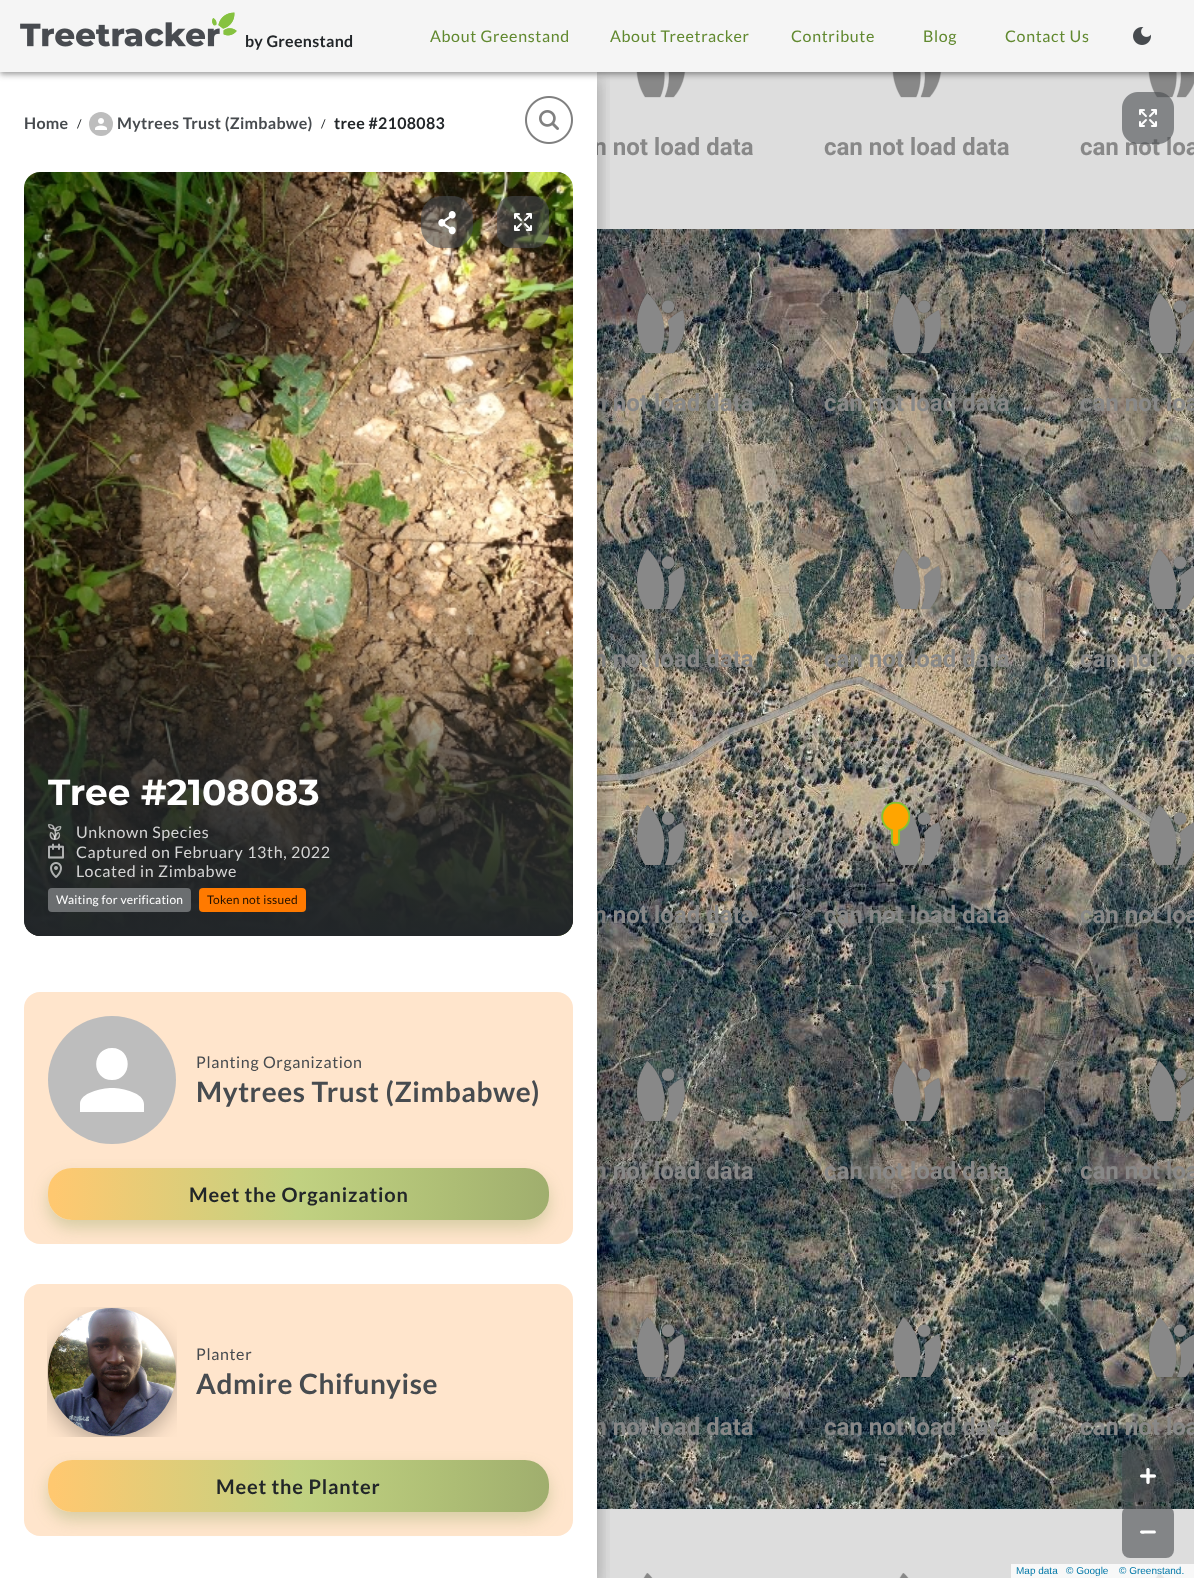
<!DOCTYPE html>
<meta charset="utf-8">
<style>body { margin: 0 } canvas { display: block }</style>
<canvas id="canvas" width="1194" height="1578"></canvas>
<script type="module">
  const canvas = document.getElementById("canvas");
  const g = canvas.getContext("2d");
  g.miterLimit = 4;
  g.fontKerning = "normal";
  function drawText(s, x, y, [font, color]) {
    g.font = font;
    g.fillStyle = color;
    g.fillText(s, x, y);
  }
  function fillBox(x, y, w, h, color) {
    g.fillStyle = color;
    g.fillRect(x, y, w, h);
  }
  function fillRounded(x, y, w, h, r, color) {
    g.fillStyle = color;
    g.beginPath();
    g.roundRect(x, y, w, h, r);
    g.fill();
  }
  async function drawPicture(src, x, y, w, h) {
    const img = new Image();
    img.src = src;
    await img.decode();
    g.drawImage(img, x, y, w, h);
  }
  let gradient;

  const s1 = ["bold 16px Lato", "#222629"];
  const s2 = ["16px Lato", "#61892F"];
  const s3 = ["bold 16px Lato", "#474B4F"];
  const s4 = ["12px Lato", "#222629"];
  const s5 = ["bold 36px Montserrat", "#FFFFFF"];
  const s6 = ["16px Lato", "#D4D4D4"];
  const s7 = ["12px Lato", "#FFFFFF"];
  const s8 = ["12px Lato", "#211000"];
  const s9 = ["16px Lato", "#474B4F"];
  const s10 = ["bold 28px Lato", "#474B4F"];
  const s11 = ["bold 20px Lato", "#222629"];
  const s12 = ["10px Liberation Sans", "#0078A8"];

  fillBox(0, 0, 1194, 1578, "#FFFFFF");
  fillBox(597, 72, 597, 1506, "#DDDDDD");
  await drawPicture("pic14.png", 597, 72, 156, 84);
  await drawPicture("pic15.png", 824, 72, 185, 84);
  await drawPicture("pic16.png", 1080, 72, 114, 84);
  g.fillStyle = "rgba(0, 0, 0, 0.12)";
  g.filter = "blur(5px)";
  g.beginPath();
  g.rect(0, 1, 1194, 72);
  g.fill();
  g.filter = "none";
  g.fillStyle = "rgba(0, 0, 0, 0.14)";
  g.filter = "blur(2.5px)";
  g.beginPath();
  g.rect(0, 4, 1194, 72);
  g.fill();
  g.filter = "none";
  g.fillStyle = "rgba(0, 0, 0, 0.2)";
  g.filter = "blur(2px)";
  g.beginPath();
  g.rect(1, 3, 1192, 70);
  g.fill();
  g.filter = "none";
  await drawPicture("pic34.png", 597, 229, 192, 256);
  await drawPicture("pic17.png", 597, 293, 156, 119);
  await drawPicture("pic37.png", 597, 485, 192, 256);
  await drawPicture("pic20.png", 597, 549, 156, 119);
  await drawPicture("pic40.png", 597, 741, 192, 256);
  await drawPicture("pic23.png", 597, 805, 156, 119);
  await drawPicture("pic43.png", 597, 997, 192, 256);
  await drawPicture("pic26.png", 597, 1061, 156, 119);
  await drawPicture("pic46.png", 597, 1253, 192, 256);
  await drawPicture("pic29.png", 597, 1317, 156, 119);
  g.save();
  g.beginPath();
  g.rect(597, 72, 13, 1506);
  g.clip();
  g.fillStyle = "rgba(0, 0, 0, 0.12)";
  g.filter = "blur(10px)";
  g.beginPath();
  g.rect(-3, 73, 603, 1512);
  g.fill();
  g.filter = "none";
  g.restore();
  g.save();
  g.beginPath();
  g.rect(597, 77, 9, 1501);
  g.clip();
  g.fillStyle = "rgba(0, 0, 0, 0.14)";
  g.filter = "blur(7.5px)";
  g.beginPath();
  g.rect(-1, 82, 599, 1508);
  g.fill();
  g.filter = "none";
  g.restore();
  fillBox(0, 0, 1194, 72, "#F5F5F5");
  await drawPicture("pic1.png", 20, 12, 217, 35);
  g.letterSpacing = "0.3px";
  drawText("by Greenstand", 245, 47, s1);
  g.letterSpacing = "0.65px";
  drawText("About Greenstand", 430, 42, s2);
  drawText("About Treetracker", 610, 42, s2);
  drawText("Contribute", 791, 42, s2);
  drawText("Blog", 923, 42, s2);
  drawText("Contact Us", 1005, 42, s2);
  await drawPicture("pic2.png", 1133, 27, 18, 18);
  g.letterSpacing = "0.3px";
  drawText("Home", 24, 129, s3);
  g.letterSpacing = "0px";
  drawText("/", 77, 128, s4);
  g.fillStyle = "#BDBDBD";
  g.beginPath();
  g.arc(101, 124, 12, 0, Math.PI * 2);
  g.fill();
  await drawPicture("pic3.png", 95, 118, 12, 12);
  g.letterSpacing = "0.3px";
  drawText("Mytrees Trust (Zimbabwe)", 117, 129, s3);
  g.letterSpacing = "0px";
  drawText("/", 321, 128, s4);
  g.letterSpacing = "0.3px";
  drawText("tree #2108083", 334, 129, s1);
  await drawPicture("pic4.png", 525, 96, 48, 48);
  await drawPicture("pic5.png", 24, 172, 549, 764);
  await drawPicture("pic6.png", 421, 196, 52, 52);
  await drawPicture("pic7.png", 497, 196, 52, 52);
  gradient = g.createLinearGradient(324, 939, 321, 625);
  gradient.addColorStop(0, "#222629");
  gradient.addColorStop(0.38, "rgba(34, 38, 41, 0.8)");
  gradient.addColorStop(0.5, "rgba(34, 38, 41, 0.7)");
  gradient.addColorStop(0.58, "rgba(34, 38, 41, 0.6)");
  gradient.addColorStop(0.83, "rgba(34, 38, 41, 0.2)");
  gradient.addColorStop(0.93, "rgba(34, 38, 41, 0.05)");
  gradient.addColorStop(0.99, "rgba(34, 38, 41, 0)");
  g.fillStyle = gradient;
  g.beginPath();
  g.roundRect(24, 628, 549, 308, [0, 0, 16, 16]);
  g.fill();
  g.letterSpacing = "0px";
  drawText("Tree #2108083", 48, 805, s5);
  await drawPicture("pic8.png", 48, 824, 14, 16);
  g.letterSpacing = "0.65px";
  drawText("Unknown Species", 76, 838, s6);
  await drawPicture("pic9.png", 48, 843, 16, 16);
  drawText("Captured on February 13th, 2022", 76, 858, s6);
  await drawPicture("pic10.png", 50, 862, 12, 16);
  drawText("Located in Zimbabwe", 76, 877, s6);
  fillRounded(48, 888, 143, 24, 4, "#6B6E70");
  g.letterSpacing = "0.25px";
  drawText("Waiting for verification", 56, 904, s7);
  fillRounded(199, 888, 107, 24, 4, "#FF7A00");
  drawText("Token not issued", 207, 904, s8);
  fillRounded(24, 992, 549, 252, 16, "#FFE5CC");
  g.fillStyle = "#BDBDBD";
  g.beginPath();
  g.arc(112, 1080, 64, 0, Math.PI * 2);
  g.fill();
  g.fillStyle = "#FFFFFF";
  g.beginPath();
  g.moveTo(112, 1080);
  g.bezierCurveTo(133, 1080, 133, 1048, 112, 1048);
  g.bezierCurveTo(91, 1048, 91, 1080, 112, 1080);
  g.closePath();
  g.moveTo(112, 1088);
  g.bezierCurveTo(101, 1088, 80, 1093, 80, 1104);
  g.lineTo(80, 1112);
  g.lineTo(144, 1112);
  g.lineTo(144, 1104);
  g.bezierCurveTo(144, 1093, 123, 1088, 112, 1088);
  g.closePath();
  g.fill();
  g.letterSpacing = "0.65px";
  drawText("Planting Organization", 196, 1068, s9);
  g.letterSpacing = "0.6px";
  drawText("Mytrees Trust (Zimbabwe)", 196, 1102, s10);
  g.save();
  g.beginPath();
  g.moveTo(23, 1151);
  g.lineTo(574, 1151);
  g.lineTo(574, 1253);
  g.lineTo(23, 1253);
  g.closePath();
  g.moveTo(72, 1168);
  g.lineTo(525, 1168);
  g.bezierCurveTo(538.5, 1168, 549, 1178.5, 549, 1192);
  g.lineTo(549, 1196);
  g.bezierCurveTo(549, 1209.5, 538.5, 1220, 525, 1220);
  g.lineTo(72, 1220);
  g.bezierCurveTo(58.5, 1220, 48, 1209.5, 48, 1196);
  g.lineTo(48, 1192);
  g.bezierCurveTo(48, 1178.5, 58.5, 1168, 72, 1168);
  g.closePath();
  g.clip("evenodd");
  g.fillStyle = "rgba(97, 137, 47, 0.25)";
  g.filter = "blur(8px)";
  g.beginPath();
  g.roundRect(48, 1176, 501, 52, 24);
  g.fill();
  g.filter = "none";
  g.restore();
  gradient = g.createLinearGradient(48, 1194, 549, 1194);
  gradient.addColorStop(0.01, "rgba(255, 165, 0, 0.45)");
  gradient.addColorStop(0.5, "rgba(117, 185, 38, 0.45)");
  gradient.addColorStop(1, "rgba(96, 137, 47, 0.6)");
  g.fillStyle = gradient;
  g.beginPath();
  g.roundRect(48, 1168, 501, 52, 24);
  g.fill();
  g.letterSpacing = "0.8px";
  drawText("Meet the Organization", 189, 1202, s11);
  fillRounded(24, 1284, 549, 252, 16, "#FFE5CC");
  await drawPicture("pic11.png", 47, 1307, 130, 130);
  g.letterSpacing = "0.65px";
  drawText("Planter", 196, 1360, s9);
  g.letterSpacing = "0.6px";
  drawText("Admire Chifunyise", 196, 1394, s10);
  g.save();
  g.beginPath();
  g.moveTo(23, 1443);
  g.lineTo(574, 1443);
  g.lineTo(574, 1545);
  g.lineTo(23, 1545);
  g.closePath();
  g.moveTo(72, 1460);
  g.lineTo(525, 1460);
  g.bezierCurveTo(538.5, 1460, 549, 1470.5, 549, 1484);
  g.lineTo(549, 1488);
  g.bezierCurveTo(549, 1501.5, 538.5, 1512, 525, 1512);
  g.lineTo(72, 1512);
  g.bezierCurveTo(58.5, 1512, 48, 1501.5, 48, 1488);
  g.lineTo(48, 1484);
  g.bezierCurveTo(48, 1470.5, 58.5, 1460, 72, 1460);
  g.closePath();
  g.clip("evenodd");
  g.fillStyle = "rgba(97, 137, 47, 0.25)";
  g.filter = "blur(8px)";
  g.beginPath();
  g.roundRect(48, 1468, 501, 52, 24);
  g.fill();
  g.filter = "none";
  g.restore();
  gradient = g.createLinearGradient(48, 1486, 549, 1486);
  gradient.addColorStop(0.01, "rgba(255, 165, 0, 0.45)");
  gradient.addColorStop(0.5, "rgba(117, 185, 38, 0.45)");
  gradient.addColorStop(1, "rgba(96, 137, 47, 0.6)");
  g.fillStyle = gradient;
  g.beginPath();
  g.roundRect(48, 1460, 501, 52, 24);
  g.fill();
  g.letterSpacing = "0.8px";
  drawText("Meet the Planter", 216, 1494, s11);
  await drawPicture("pic12.png", 1122, 92, 52, 52);
  await drawPicture("pic48.png", 1045, 1253, 149, 256);
  await drawPicture("pic13.png", 1122, 1450, 52, 52);
  fillRounded(1122, 1506, 52, 52, 8, "rgba(71, 75, 79, 0.6)");
  g.fillStyle = "#FFFFFF";
  g.beginPath();
  g.moveTo(1141.5, 1530.5);
  g.lineTo(1155, 1530.5);
  g.bezierCurveTo(1156.5, 1531.5, 1156, 1533.5, 1154.5, 1533.5);
  g.lineTo(1146, 1533.5);
  g.bezierCurveTo(1144.5, 1533.5, 1140, 1534.5, 1140, 1532);
  g.bezierCurveTo(1140, 1531, 1141, 1530.5, 1141.5, 1530.5);
  g.closePath();
  g.fill("evenodd");
  fillBox(1011, 1564, 183, 14, "#F8F8F8");
  await drawPicture("pic35.png", 789, 229, 256, 256);
  await drawPicture("pic18.png", 824, 293, 185, 119);
  await drawPicture("pic36.png", 1045, 229, 149, 256);
  await drawPicture("pic19.png", 1080, 293, 114, 119);
  await drawPicture("pic38.png", 789, 485, 256, 256);
  await drawPicture("pic21.png", 824, 549, 185, 119);
  await drawPicture("pic39.png", 1045, 485, 149, 256);
  await drawPicture("pic22.png", 1080, 549, 114, 119);
  await drawPicture("pic41.png", 789, 741, 256, 256);
  await drawPicture("pic24.png", 824, 807, 185, 117);
  await drawPicture("pic42.png", 1045, 741, 149, 256);
  await drawPicture("pic25.png", 1080, 805, 114, 119);
  await drawPicture("pic44.png", 789, 997, 256, 256);
  await drawPicture("pic27.png", 824, 1061, 185, 119);
  await drawPicture("pic45.png", 1045, 997, 149, 256);
  await drawPicture("pic28.png", 1080, 1061, 114, 119);
  await drawPicture("pic47.png", 789, 1253, 256, 256);
  await drawPicture("pic30.png", 824, 1317, 185, 119);
  await drawPicture("pic31.png", 1080, 1317, 114, 119);
  await drawPicture("pic32.png", 643, 1573, 10, 5);
  await drawPicture("pic32.png", 899, 1573, 10, 5);
  await drawPicture("pic33.png", 1155, 1573, 10, 5);
  await drawPicture("pic49.png", 881, 802, 29, 44);
  g.letterSpacing = "0px";
  drawText("Map data   © Google", 1016, 1574, s12);
  drawText("© Greenstand.", 1119, 1574, s12);
</script>
